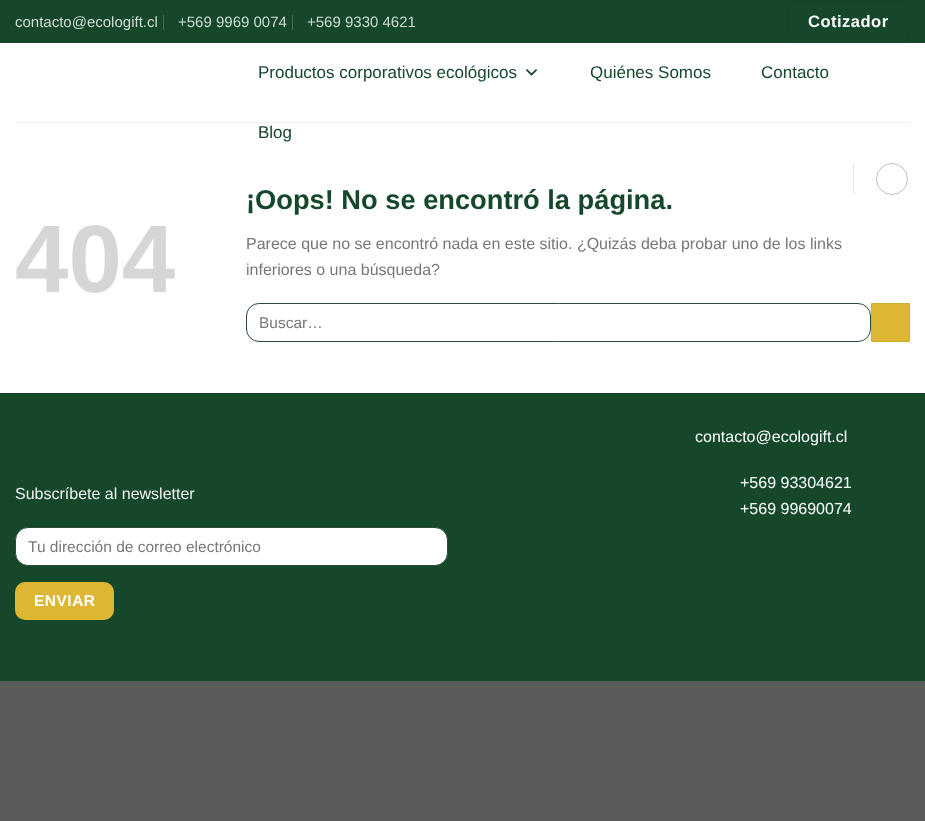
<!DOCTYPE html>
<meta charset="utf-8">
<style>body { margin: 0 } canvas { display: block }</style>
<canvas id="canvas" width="925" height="821"></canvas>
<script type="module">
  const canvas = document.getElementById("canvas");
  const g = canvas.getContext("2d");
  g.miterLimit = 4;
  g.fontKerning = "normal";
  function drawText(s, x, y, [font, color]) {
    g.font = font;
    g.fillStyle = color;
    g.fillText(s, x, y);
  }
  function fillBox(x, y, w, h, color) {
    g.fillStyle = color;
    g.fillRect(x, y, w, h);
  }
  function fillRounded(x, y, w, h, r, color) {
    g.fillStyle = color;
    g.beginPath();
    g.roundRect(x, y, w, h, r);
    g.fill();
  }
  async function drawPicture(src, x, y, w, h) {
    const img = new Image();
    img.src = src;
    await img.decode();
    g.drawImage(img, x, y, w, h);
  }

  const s1 = ["15px Liberation Sans", "#D0DAD4"];
  const s2 = ["bold 16.5px Liberation Sans", "#FFFFFF"];
  const s3 = ["17px Liberation Sans", "#15482A"];
  const s4 = ["bold 96px Liberation Sans", "#D6D6D6"];
  const s5 = ["bold 27.25px Liberation Sans", "#15482A"];
  const s6 = ["16px Liberation Sans", "#777777"];
  const s7 = ["15.5px Liberation Sans", "#777777"];
  const s8 = ["16px Liberation Sans", "#FFFFFF"];
  const s9 = ["16px Liberation Sans", "#F1F1F1"];
  const s10 = ["bold 15.5px Liberation Sans", "#FFFFFF"];

  fillBox(0, 0, 925, 821, "#5B5B5B");
  fillBox(0, 43, 925, 350, "#FFFFFF");
  fillBox(0, 0, 925, 43, "#15482A");
  drawText("contacto@ecologift.cl", 15, 27, s1);
  fillBox(163, 15, 1, 15, "#446D55");
  drawText("+569 9969 0074", 178, 27, s1);
  fillBox(292, 15, 1, 15, "#446D55");
  drawText("+569 9330 4621", 307, 27, s1);
  g.beginPath();
  g.roundRect(788.5, 1.5, 121, 40, 9.5);
  g.strokeStyle = "#144428";
  g.stroke();
  g.letterSpacing = "0.5px";
  drawText("Cotizador", 808, 27, s2);
  g.letterSpacing = "0px";
  drawText("Productos corporativos ecológicos", 258, 78, s3);
  await drawPicture("pic1.png", 525, 69, 13, 7);
  drawText("Quiénes Somos", 590, 78, s3);
  drawText("Contacto", 761, 78, s3);
  drawText("Blog", 258, 138, s3);
  fillBox(853, 164, 1, 30, "#E6E6E6");
  g.beginPath();
  g.arc(892, 179, 15.5, 0, Math.PI * 2);
  g.strokeStyle = "#C0C0C0";
  g.stroke();
  fillBox(15, 122, 895, 1, "#F1F1F1");
  drawText("404", 15, 292, s4);
  drawText("¡Oops! No se encontró la página.", 246, 209, s5);
  drawText("Parece que no se encontró nada en este sitio. ¿Quizás deba probar uno de los links", 246, 249, s6);
  drawText("inferiores o una búsqueda?", 246, 275, s6);
  g.beginPath();
  g.roundRect(246.5, 303.5, 624, 38, 12.5);
  g.strokeStyle = "#264E35";
  g.stroke();
  drawText("Buscar…", 259, 328, s7);
  g.fillStyle = "#DDB633";
  g.beginPath();
  g.rect(871.5, 303.5, 38, 38);
  g.fill();
  g.strokeStyle = "#D2AD30";
  g.stroke();
  fillBox(0, 394, 925, 287, "#15482A");
  fillBox(0, 393, 925, 1, "#144428");
  drawText("contacto@ecologift.cl", 695, 442, s8);
  drawText("+569 93304621", 740, 488, s8);
  drawText("+569 99690074", 740, 514, s8);
  drawText("Subscríbete al newsletter", 15, 499, s9);
  g.fillStyle = "#FFFFFF";
  g.beginPath();
  g.roundRect(15.5, 527.5, 432, 38, 12.5);
  g.fill();
  g.strokeStyle = "#264E35";
  g.stroke();
  drawText("Tu dirección de correo electrónico", 28, 552, s7);
  fillRounded(15, 582, 99, 38, 10, "#DDB633");
  g.letterSpacing = "0.5px";
  drawText("ENVIAR", 34, 606, s10);
</script>
